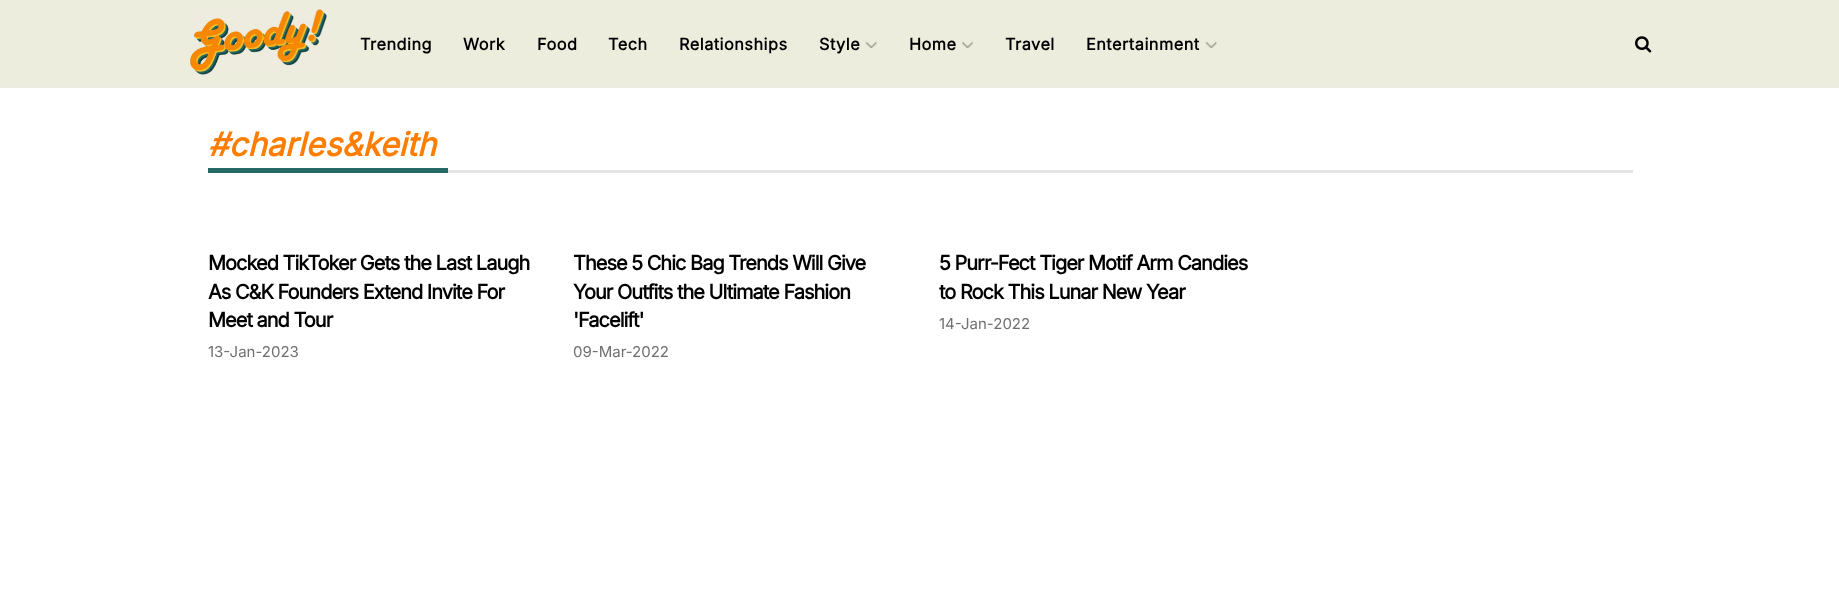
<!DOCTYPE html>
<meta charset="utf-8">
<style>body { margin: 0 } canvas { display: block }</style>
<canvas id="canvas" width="1839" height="593"></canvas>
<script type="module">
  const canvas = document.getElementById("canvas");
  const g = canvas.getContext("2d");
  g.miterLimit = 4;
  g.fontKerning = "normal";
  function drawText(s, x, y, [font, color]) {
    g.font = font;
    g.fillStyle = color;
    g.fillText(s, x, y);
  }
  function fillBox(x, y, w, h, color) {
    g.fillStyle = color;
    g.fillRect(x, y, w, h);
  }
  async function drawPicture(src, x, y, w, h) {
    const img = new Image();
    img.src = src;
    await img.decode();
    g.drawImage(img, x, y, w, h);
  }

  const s1 = ["bold 16.25px Inter", "#000000"];
  const s2 = ["italic bold 32.5px Inter", "#FF7E00"];
  const s3 = ["bold 20px Inter", "#000000"];
  const s4 = ["15px Inter", "#6F6F6F"];

  fillBox(0, 0, 1839, 593, "#FFFFFF");
  fillBox(0, 0, 1839, 88, "#EDEDDE");
  fillBox(0, 86, 1839, 1, "#EBEBEB");
  await drawPicture("pic1.png", 190, 9, 137, 66);
  g.letterSpacing = "0.5px";
  drawText("Trending", 360, 50, s1);
  drawText("Work", 463, 50, s1);
  drawText("Food", 537, 50, s1);
  drawText("Tech", 608, 50, s1);
  drawText("Relationships", 679, 50, s1);
  drawText("Style", 819, 50, s1);
  await drawPicture("pic2.png", 865, 41, 12, 7);
  drawText("Home", 909, 50, s1);
  await drawPicture("pic3.png", 962, 41, 11, 7);
  drawText("Travel", 1005, 50, s1);
  drawText("Entertainment", 1086, 50, s1);
  await drawPicture("pic4.png", 1205, 41, 12, 7);
  await drawPicture("pic5.png", 1635, 36, 17, 17);
  fillBox(448, 170, 1185, 3, "#E5E5E5");
  fillBox(208, 168, 240, 5, "#256A67");
  g.letterSpacing = "0px";
  drawText("#charles&keith", 208, 156, s2);
  g.letterSpacing = "-1px";
  drawText("Mocked TikToker Gets the Last Laugh", 208, 270, s3);
  drawText("As C&K Founders Extend Invite For", 208, 299, s3);
  drawText("Meet and Tour", 208, 327, s3);
  g.letterSpacing = "0px";
  drawText("13-Jan-2023", 208, 357, s4);
  g.letterSpacing = "-1px";
  drawText("These 5 Chic Bag Trends Will Give", 573, 270, s3);
  drawText("Your Outfits the Ultimate Fashion", 573, 299, s3);
  drawText("'Facelift'", 573, 327, s3);
  g.letterSpacing = "0px";
  drawText("09-Mar-2022", 573, 357, s4);
  g.letterSpacing = "-1px";
  drawText("5 Purr-Fect Tiger Motif Arm Candies", 939, 270, s3);
  drawText("to Rock This Lunar New Year", 939, 299, s3);
  g.letterSpacing = "0px";
  drawText("14-Jan-2022", 939, 329, s4);
</script>
